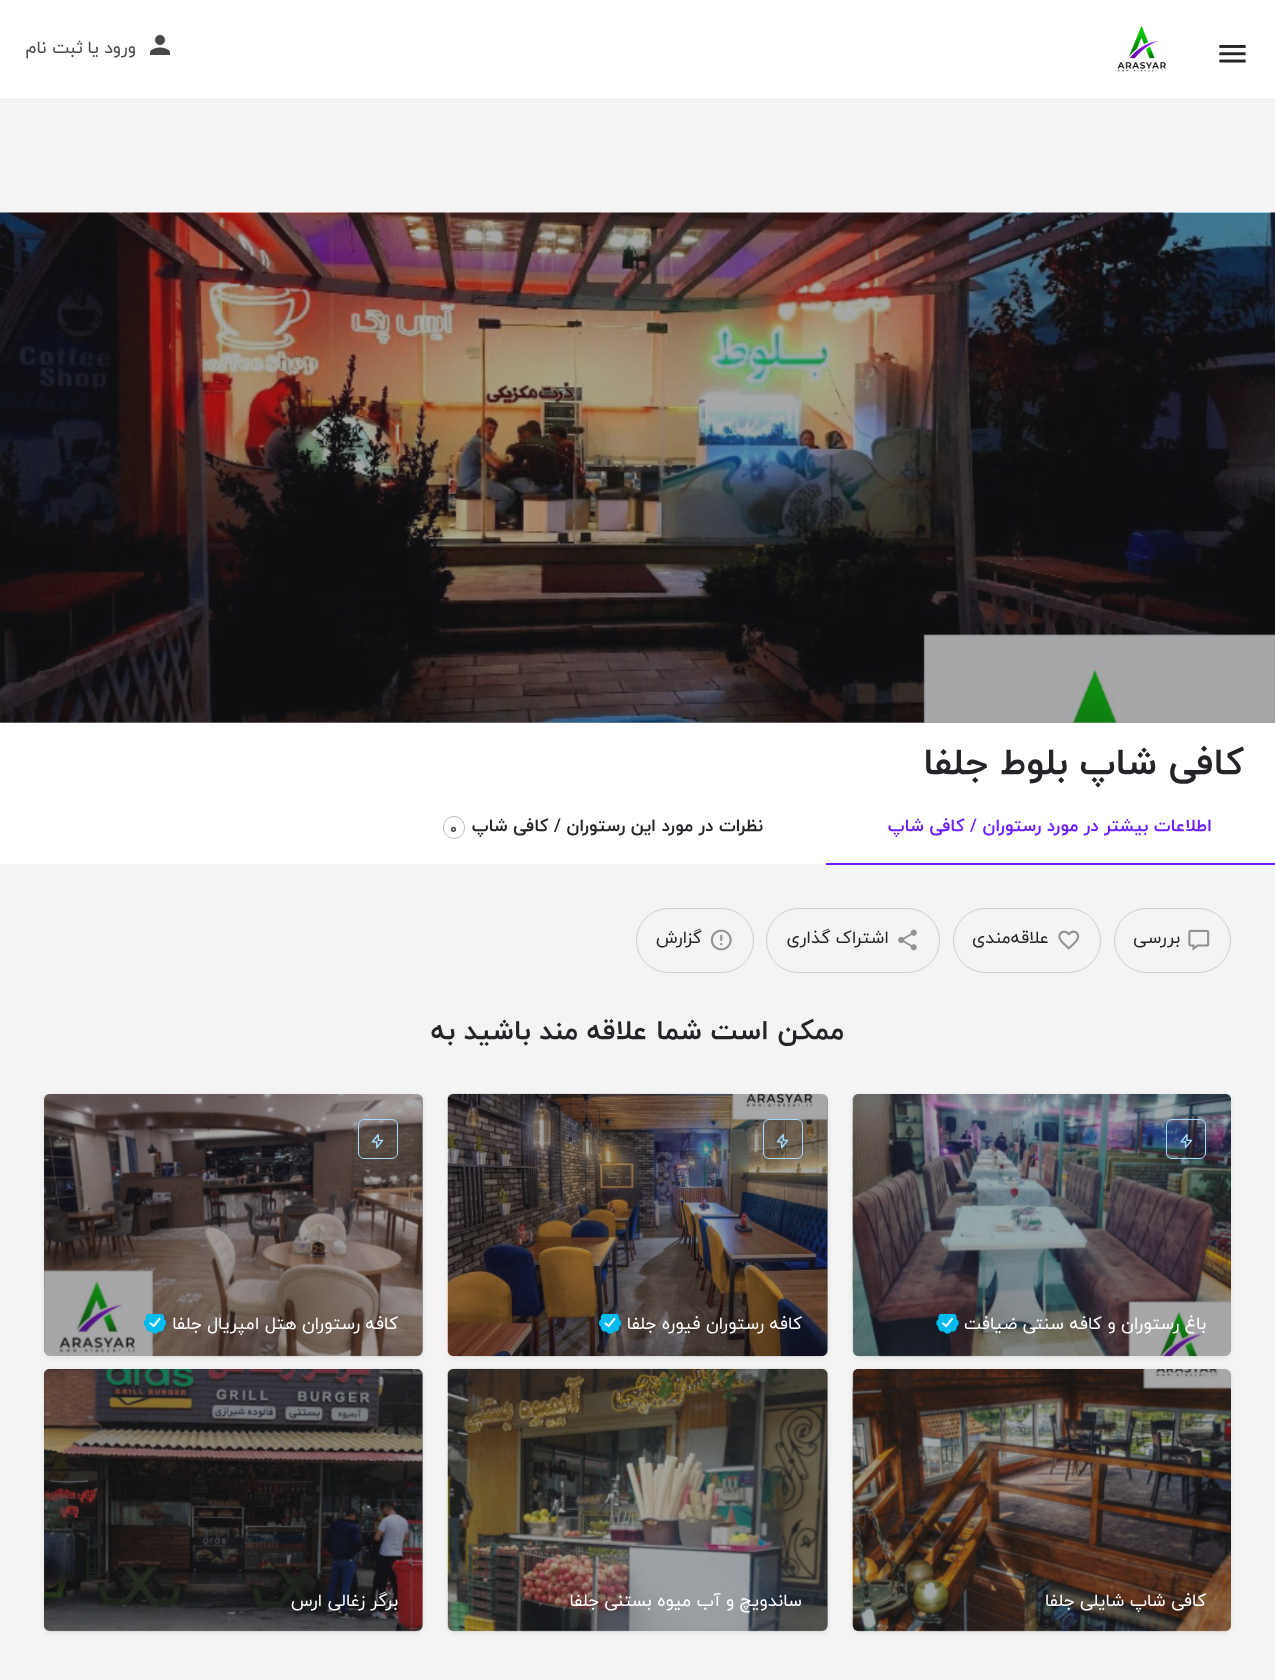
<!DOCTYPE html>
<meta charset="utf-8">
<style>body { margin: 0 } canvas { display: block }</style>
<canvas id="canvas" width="1275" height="1680"></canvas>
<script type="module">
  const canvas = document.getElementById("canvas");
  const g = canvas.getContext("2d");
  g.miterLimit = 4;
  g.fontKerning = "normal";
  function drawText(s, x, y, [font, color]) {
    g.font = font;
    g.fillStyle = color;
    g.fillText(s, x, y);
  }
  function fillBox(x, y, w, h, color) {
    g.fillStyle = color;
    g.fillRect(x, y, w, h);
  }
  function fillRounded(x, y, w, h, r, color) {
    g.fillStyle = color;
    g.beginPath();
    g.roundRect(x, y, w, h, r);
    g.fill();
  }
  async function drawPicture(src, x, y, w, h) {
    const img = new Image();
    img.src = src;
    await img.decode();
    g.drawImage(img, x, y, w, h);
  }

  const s1 = ["17.5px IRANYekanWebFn", "#484848"];
  const s2 = ["bold 37.5px IRANYekanWebFn", "#242429"];
  const s3 = ["bold 17.5px IRANYekanWebFn", "#6C1CFF"];
  const s4 = ["bold 17.5px IRANYekanWebFn", "#242429"];
  const s5 = ["bold 14px IRANYekanWebFn", "#484848"];
  const s6 = ["17.5px IRANYekanWebFn", "#242429"];
  const s7 = ["bold 27.5px IRANYekanWebFn", "#242429"];
  const s8 = ["17.5px IRANYekanWebFn", "#FFFFFF"];

  fillBox(0, 0, 1275, 1680, "#F4F4F4");
  fillBox(0, 722, 1275, 1, "#A1A1A3");
  fillBox(0, 0, 1275, 99, "#FFFFFF");
  fillBox(0, 99, 1275, 1, "#EBEBEB");
  await drawPicture("pic1.png", 1219, 45, 27, 18);
  await drawPicture("pic2.png", 1117, 26, 50, 47);
  await drawPicture("pic3.png", 150, 35, 20, 20);
  g.direction = "rtl";
  drawText("ورود", 136, 53, s1);
  drawText("یا", 99, 53, s1);
  drawText("ثبت نام", 83, 53, s1);
  await drawPicture("pic4.png", 0, 212, 1275, 511);
  fillBox(0, 723, 1275, 141, "#FFFFFF");
  drawText("کافی شاپ بلوط جلفا", 1244, 774, s2);
  drawText("اطلاعات بیشتر در مورد رستوران / کافی شاپ", 1212, 831, s3);
  fillBox(826, 863, 449, 2, "#6C1CFF");
  drawText("نظرات در مورد این رستوران / کافی شاپ", 763, 831, s4);
  g.beginPath();
  g.roundRect(443.5, 816.5, 21, 22, 10.5);
  g.strokeStyle = "#BAC1C1";
  g.stroke();
  g.direction = "ltr";
  drawText("0", 450, 833, s5);
  g.beginPath();
  g.roundRect(1114.5, 908.5, 116, 64, 32);
  g.strokeStyle = "#CFCFCF";
  g.stroke();
  await drawPicture("pic5.png", 1188, 929, 22, 22);
  g.direction = "rtl";
  drawText("بررسی", 1180, 943, s6);
  g.beginPath();
  g.roundRect(953.5, 908.5, 147, 64, 32);
  g.stroke();
  await drawPicture("pic6.png", 1058, 930, 22, 20);
  drawText("علاقه‌مندی", 1049, 943, s6);
  g.beginPath();
  g.roundRect(766.5, 908.5, 173, 64, 32);
  g.stroke();
  await drawPicture("pic7.png", 898, 929, 19, 22);
  drawText("اشتراک گذاری", 889, 943, s6);
  g.beginPath();
  g.roundRect(636.5, 908.5, 117, 64, 32);
  g.stroke();
  await drawPicture("pic8.png", 710, 929, 22, 22);
  drawText("گزارش", 702, 943, s6);
  drawText("ممکن است شما علاقه مند باشید به", 844, 1039, s7);
  g.fillStyle = "rgba(0, 0, 0, 0.07)";
  g.filter = "blur(2.5px)";
  g.beginPath();
  g.roundRect(853, 1095, 378, 263, 6);
  g.fill();
  g.filter = "none";
  await drawPicture("pic9.png", 852, 1094, 379, 263);
  fillRounded(853, 1094, 378, 262, 6, "rgba(36, 36, 41, 0.4)");
  g.beginPath();
  g.roundRect(1166.5, 1119.5, 39, 39, 5.5);
  g.strokeStyle = "#A4DAFF";
  g.stroke();
  await drawPicture("pic10.png", 1180, 1133, 13, 16);
  drawText("باغ رستوران و کافه سنتی ضیافت", 1206, 1329, s8);
  await drawPicture("pic11.png", 936, 1314, 23, 20);
  g.fillStyle = "rgba(0, 0, 0, 0.07)";
  g.filter = "blur(2.5px)";
  g.beginPath();
  g.roundRect(448, 1095, 380, 263, 6);
  g.fill();
  g.filter = "none";
  await drawPicture("pic12.png", 447, 1093, 381, 264);
  fillRounded(448, 1094, 380, 262, 6, "rgba(36, 36, 41, 0.4)");
  g.beginPath();
  g.roundRect(763.5, 1119.5, 39, 39, 5.5);
  g.stroke();
  await drawPicture("pic13.png", 776, 1133, 13, 16);
  drawText("کافه رستوران فیوره جلفا", 802, 1329, s8);
  await drawPicture("pic14.png", 599, 1314, 22, 20);
  g.fillStyle = "rgba(0, 0, 0, 0.07)";
  g.filter = "blur(2.5px)";
  g.beginPath();
  g.roundRect(44, 1095, 379, 263, 6);
  g.fill();
  g.filter = "none";
  await drawPicture("pic15.png", 44, 1094, 379, 263);
  fillRounded(44, 1094, 379, 262, 6, "rgba(36, 36, 41, 0.4)");
  g.beginPath();
  g.roundRect(358.5, 1119.5, 39, 39, 5.5);
  g.stroke();
  await drawPicture("pic16.png", 371, 1133, 13, 16);
  drawText("کافه رستوران هتل امپریال جلفا", 398, 1329, s8);
  await drawPicture("pic17.png", 144, 1314, 22, 20);
  g.fillStyle = "rgba(0, 0, 0, 0.07)";
  g.filter = "blur(2.5px)";
  g.beginPath();
  g.roundRect(853, 1370, 378, 263, 6);
  g.fill();
  g.filter = "none";
  await drawPicture("pic18.png", 852, 1369, 379, 263);
  fillRounded(853, 1369, 378, 262, 6, "rgba(36, 36, 41, 0.4)");
  drawText("کافی شاپ شایلی جلفا", 1206, 1606, s8);
  g.fillStyle = "rgba(0, 0, 0, 0.07)";
  g.filter = "blur(2.5px)";
  g.beginPath();
  g.roundRect(448, 1370, 380, 263, 6);
  g.fill();
  g.filter = "none";
  await drawPicture("pic19.png", 447, 1368, 381, 264);
  fillRounded(448, 1369, 380, 262, 6, "rgba(36, 36, 41, 0.4)");
  drawText("ساندویچ و آب میوه بستنی جلفا", 802, 1606, s8);
  g.fillStyle = "rgba(0, 0, 0, 0.07)";
  g.filter = "blur(2.5px)";
  g.beginPath();
  g.roundRect(44, 1370, 379, 263, 6);
  g.fill();
  g.filter = "none";
  await drawPicture("pic20.png", 44, 1369, 379, 263);
  fillRounded(44, 1369, 379, 262, 6, "rgba(36, 36, 41, 0.4)");
  drawText("برگر زغالی ارس", 398, 1606, s8);
</script>
